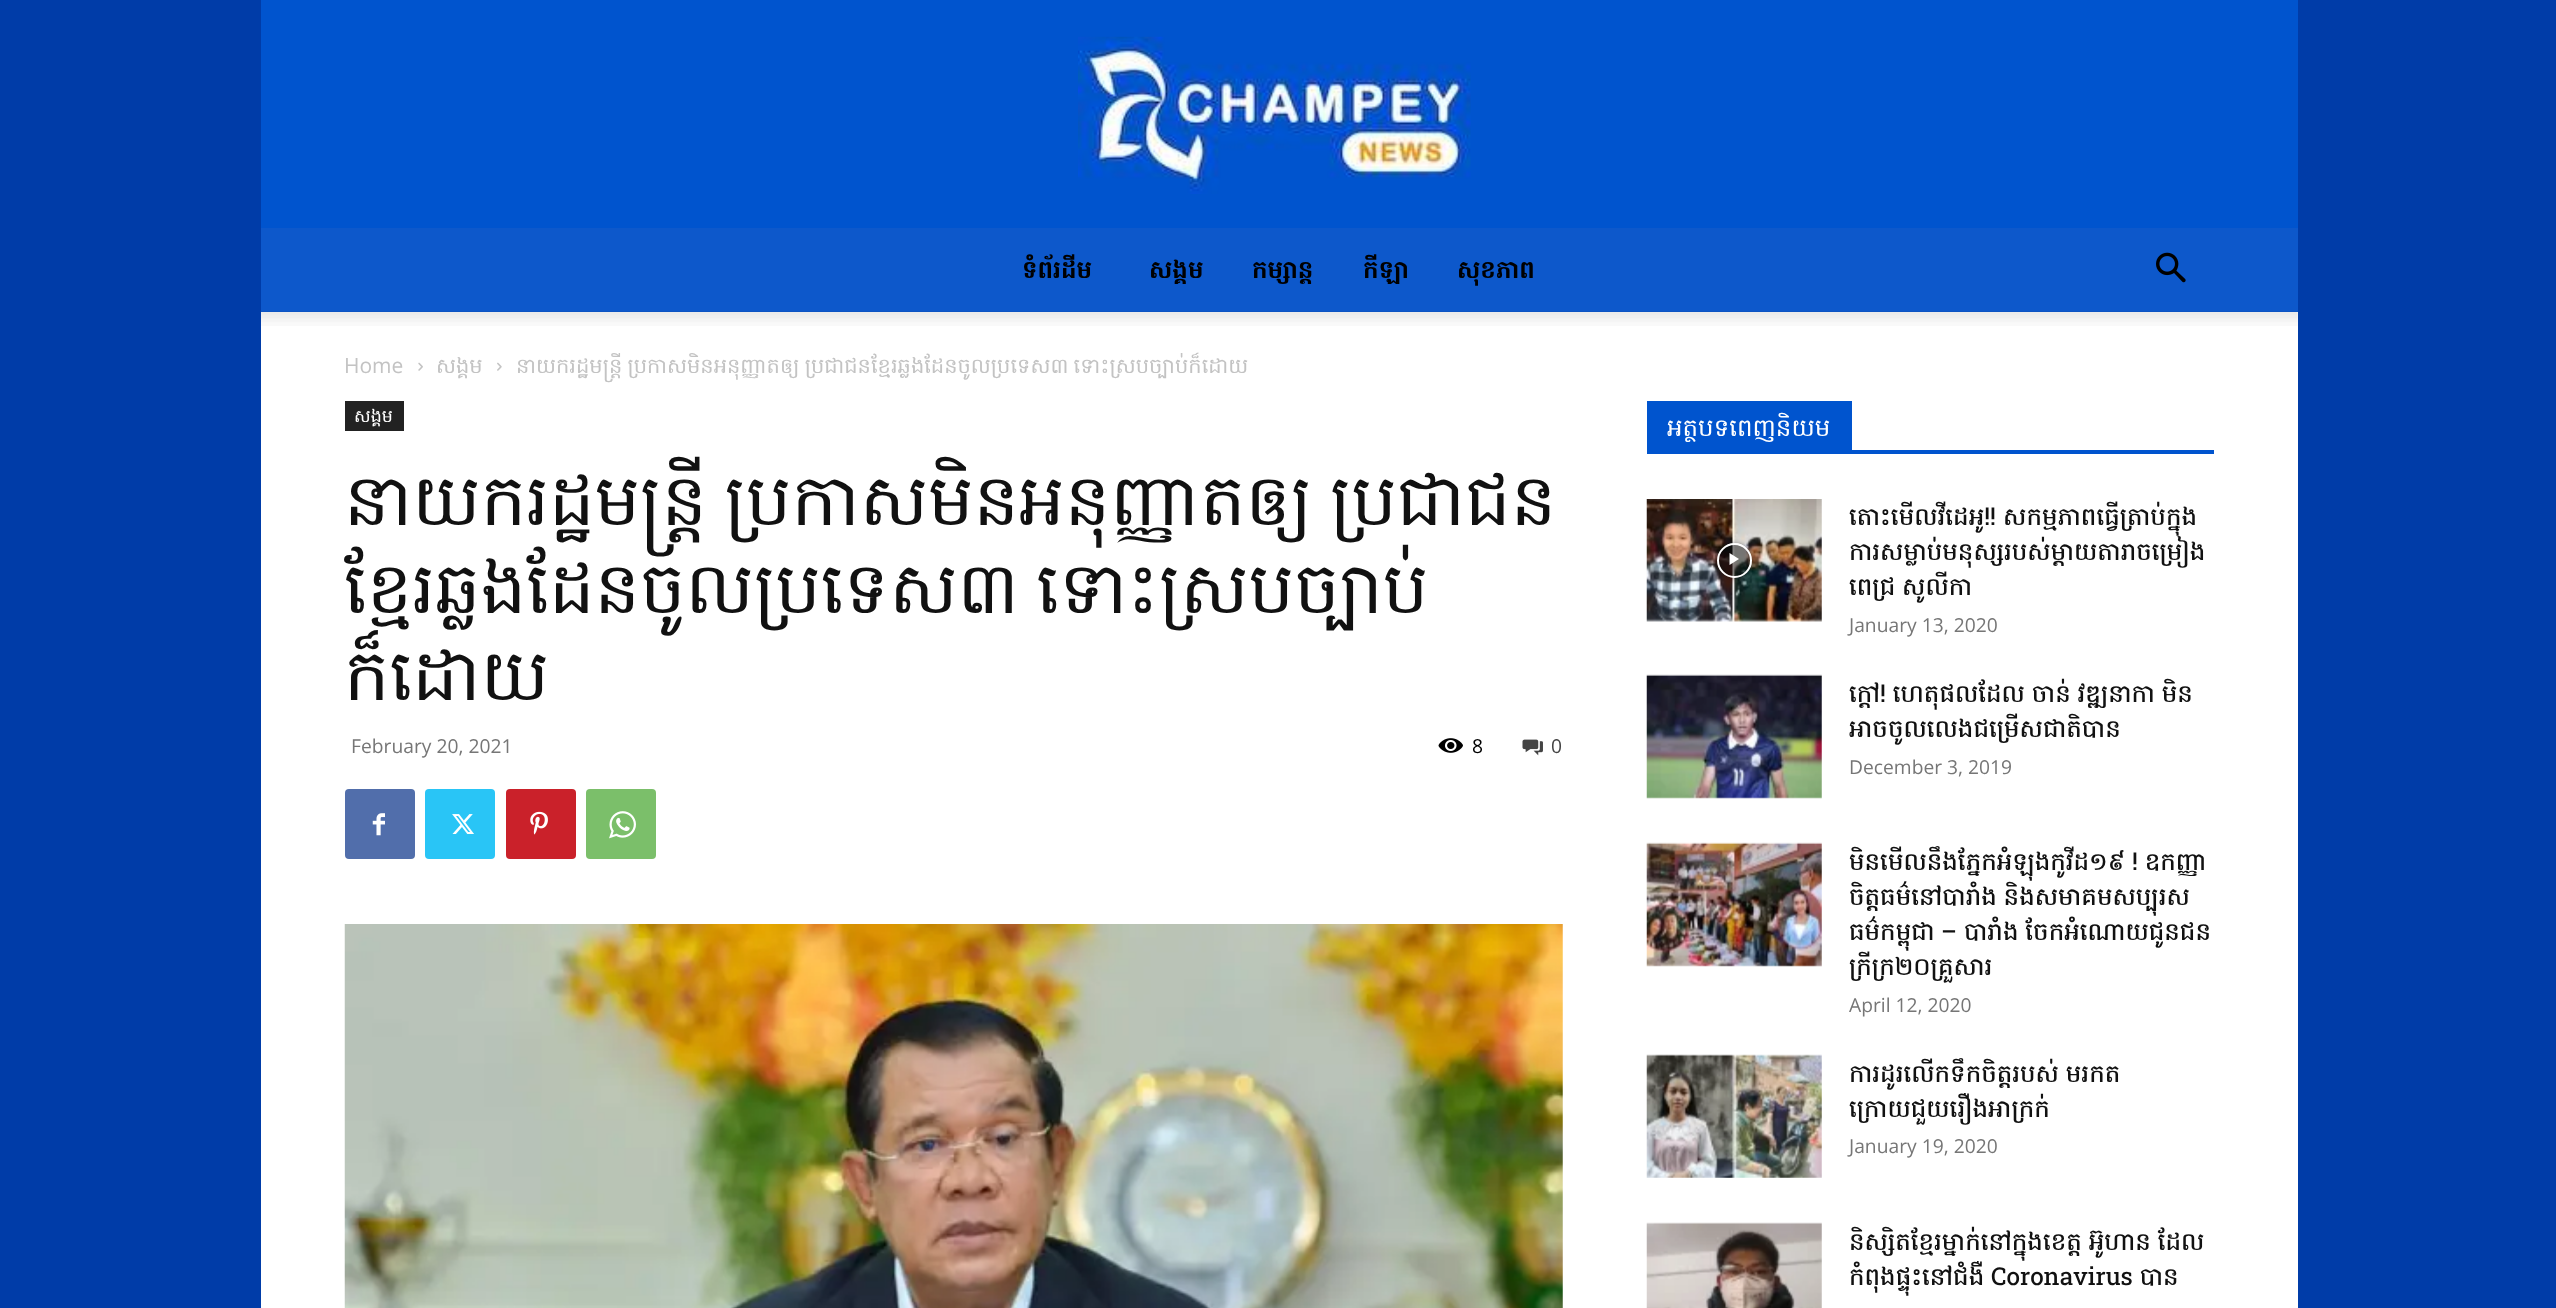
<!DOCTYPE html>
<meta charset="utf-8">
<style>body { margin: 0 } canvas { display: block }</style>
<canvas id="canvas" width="2556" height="1308"></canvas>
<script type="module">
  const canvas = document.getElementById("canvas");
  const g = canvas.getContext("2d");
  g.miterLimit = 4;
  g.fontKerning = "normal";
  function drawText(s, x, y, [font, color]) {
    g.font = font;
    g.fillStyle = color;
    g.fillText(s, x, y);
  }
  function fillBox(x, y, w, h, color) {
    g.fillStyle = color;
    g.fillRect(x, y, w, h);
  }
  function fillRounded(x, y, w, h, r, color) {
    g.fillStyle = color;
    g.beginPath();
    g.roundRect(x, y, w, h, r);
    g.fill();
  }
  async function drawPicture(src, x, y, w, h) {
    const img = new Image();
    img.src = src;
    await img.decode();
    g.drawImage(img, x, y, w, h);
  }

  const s1 = ["bold 24.5px Hanuman", "#000000"];
  const s2 = ["21px Open Sans", "#C3C3C3"];
  const s3 = ["21px Hanuman", "#C3C3C3"];
  const s4 = ["17.5px Hanuman", "#FFFFFF"];
  const s5 = ["71.75px Hanuman", "#111111"];
  const s6 = ["19.25px Open Sans", "#767676"];
  const s7 = ["19.25px Open Sans", "#000000"];
  const s8 = ["19.25px Open Sans", "#444444"];
  const s9 = ["24.5px Hanuman", "#FFFFFF"];
  const s10 = ["500 24.5px Hanuman", "#111111"];
  const s11 = ["500 24.5px Roboto", "#111111"];

  fillBox(0, 0, 2556, 1308, "#003CA8");
  fillBox(261, 0, 2037, 228, "#0054CE");
  await drawPicture("pic1.png", 1078, 36, 393, 158);
  fillBox(261, 228, 2037, 84, "#0D58CB");
  drawText("ទំព័រដើម", 1022, 278, s1);
  drawText("សង្គម", 1149, 278, s1);
  drawText("កម្សាន្ត", 1252, 278, s1);
  drawText("កីឡា", 1363, 278, s1);
  drawText("សុខភាព", 1457, 278, s1);
  await drawPicture("pic2.png", 2156, 252, 30, 31);
  fillBox(261, 312, 2037, 996, "#FFFFFF");
  await drawPicture("pic3.png", 261, 311, 2037, 15);
  drawText("Home", 344, 373, s2);
  await drawPicture("pic4.png", 418, 362, 5, 9);
  drawText("សង្គម", 436, 373, s3);
  await drawPicture("pic5.png", 497, 362, 5, 9);
  g.wordSpacing = "-2px";
  drawText("នាយករដ្ឋមន្ត្រី ប្រកាសមិនអនុញ្ញាតឲ្យ ប្រជាជនខ្មែរឆ្លងដែនចូលប្រទេស៣ ទោះស្របច្បាប់ក៏ដោយ", 516, 373, s3);
  fillBox(345, 401, 59, 30, "#222222");
  g.wordSpacing = "0px";
  drawText("សង្គម", 354, 422, s4);
  g.wordSpacing = "-7px";
  drawText("នាយករដ្ឋមន្ត្រី ប្រកាសមិនអនុញ្ញាតឲ្យ ប្រជាជន", 344, 525, s5);
  drawText("ខ្មែរឆ្លងដែនចូលប្រទេស៣ ទោះស្របច្បាប់", 344, 613, s5);
  g.wordSpacing = "0px";
  drawText("ក៏ដោយ", 344, 700, s5);
  drawText("February 20, 2021", 351, 753, s6);
  await drawPicture("pic6.png", 1438, 738, 25, 15);
  drawText("8", 1472, 753, s7);
  await drawPicture("pic7.png", 1522, 739, 21, 17);
  drawText("0", 1551, 753, s8);
  fillRounded(345, 789, 70, 70, 4, "#516EAB");
  await drawPicture("pic8.png", 372, 813, 13, 23);
  fillRounded(425, 789, 70, 70, 4, "#29C5F6");
  await drawPicture("pic9.png", 452, 814, 22, 20);
  fillRounded(506, 789, 70, 70, 4, "#CA212A");
  await drawPicture("pic10.png", 530, 811, 18, 24);
  fillRounded(586, 789, 70, 70, 4, "#7BBF6A");
  await drawPicture("pic11.png", 609, 811, 27, 28);
  await drawPicture("pic12.png", 344, 924, 1219, 384);
  fillBox(1647, 450, 567, 4, "#0054CE");
  fillBox(1647, 401, 205, 49, "#0054CE");
  drawText("អត្ថបទពេញនិយម", 1667, 436, s9);
  await drawPicture("pic13.png", 1646, 499, 176, 123);
  g.save();
  g.beginPath();
  g.moveTo(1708, 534);
  g.lineTo(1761, 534);
  g.lineTo(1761, 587);
  g.lineTo(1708, 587);
  g.closePath();
  g.moveTo(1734.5, 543);
  g.bezierCurveTo(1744, 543, 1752, 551, 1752, 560.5);
  g.bezierCurveTo(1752, 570, 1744, 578, 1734.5, 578);
  g.bezierCurveTo(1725, 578, 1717, 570, 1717, 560.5);
  g.bezierCurveTo(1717, 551, 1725, 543, 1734.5, 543);
  g.closePath();
  g.clip("evenodd");
  g.fillStyle = "rgba(0, 0, 0, 0.4)";
  g.filter = "blur(2.5px)";
  g.beginPath();
  g.roundRect(1717, 543, 35, 35, 17.5);
  g.fill();
  g.filter = "none";
  g.restore();
  g.fillStyle = "rgba(0, 0, 0, 0.48)";
  g.beginPath();
  g.arc(1734.5, 560.5, 16.5, 0, Math.PI * 2);
  g.fill();
  g.strokeStyle = "#FFFFFF";
  g.lineWidth = 2;
  g.stroke();
  g.fillStyle = "#FFFFFF";
  g.beginPath();
  g.moveTo(1729.5, 553);
  g.lineTo(1729.5, 565);
  g.lineTo(1739, 559);
  g.closePath();
  g.fill();
  g.wordSpacing = "-1px";
  drawText("តោះមើលវីដេអូ!! សកម្មភាពធ្វើត្រាប់ក្នុង", 1849, 525, s10);
  g.wordSpacing = "0px";
  drawText("ការសម្លាប់មនុស្សរបស់ម្តាយតារាចម្រៀង", 1849, 560, s10);
  g.wordSpacing = "-1.5px";
  drawText("ពេជ្រ សូលីកា", 1849, 595, s10);
  g.wordSpacing = "0px";
  drawText("January 13, 2020", 1849, 632, s6);
  await drawPicture("pic14.png", 1646, 674, 176, 125);
  g.wordSpacing = "-1.5px";
  drawText("ក្តៅ! ហេតុផលដែល ចាន់ វឌ្ឍនាកា មិន", 1849, 702, s10);
  g.wordSpacing = "0px";
  drawText("អាចចូលលេងជម្រើសជាតិបាន", 1849, 737, s10);
  drawText("December 3, 2019", 1849, 774, s6);
  await drawPicture("pic15.png", 1646, 842, 176, 125);
  g.wordSpacing = "-1.5px";
  drawText("មិនមើលនឹងភ្នែកអំឡុងកូវីដ១៩ ! ឧកញ្ញា", 1849, 870, s10);
  drawText("ចិត្តធម៌នៅបារាំង និងសមាគមសប្បុរស", 1849, 905, s10);
  g.wordSpacing = "0px";
  drawText("ធម៌កម្ពុជា", 1849, 940, s10);
  drawText("–", 1941, 940, s11);
  g.wordSpacing = "-1.5px";
  drawText("បារាំង ចែកអំណោយជូនជន", 1964, 940, s10);
  g.wordSpacing = "0px";
  drawText("ក្រីក្រ២០គ្រួសារ", 1849, 975, s10);
  drawText("April 12, 2020", 1849, 1012, s6);
  await drawPicture("pic16.png", 1646, 1054, 176, 124);
  g.wordSpacing = "-1.5px";
  drawText("ការដូរលើកទឹកចិត្តរបស់ មរកត", 1849, 1082, s10);
  g.wordSpacing = "0px";
  drawText("ក្រោយជួយរឿងអាក្រក់", 1849, 1117, s10);
  drawText("January 19, 2020", 1849, 1153, s6);
  await drawPicture("pic17.png", 1646, 1222, 176, 86);
  g.wordSpacing = "-1.5px";
  drawText("និស្សិតខ្មែរម្នាក់នៅក្នុងខេត្ត អ៊ូហាន ដែល", 1849, 1250, s10);
  drawText("កំពុងផ្ទុះនៅជំងឺ Coronavirus បាន", 1849, 1285, s10);
</script>
